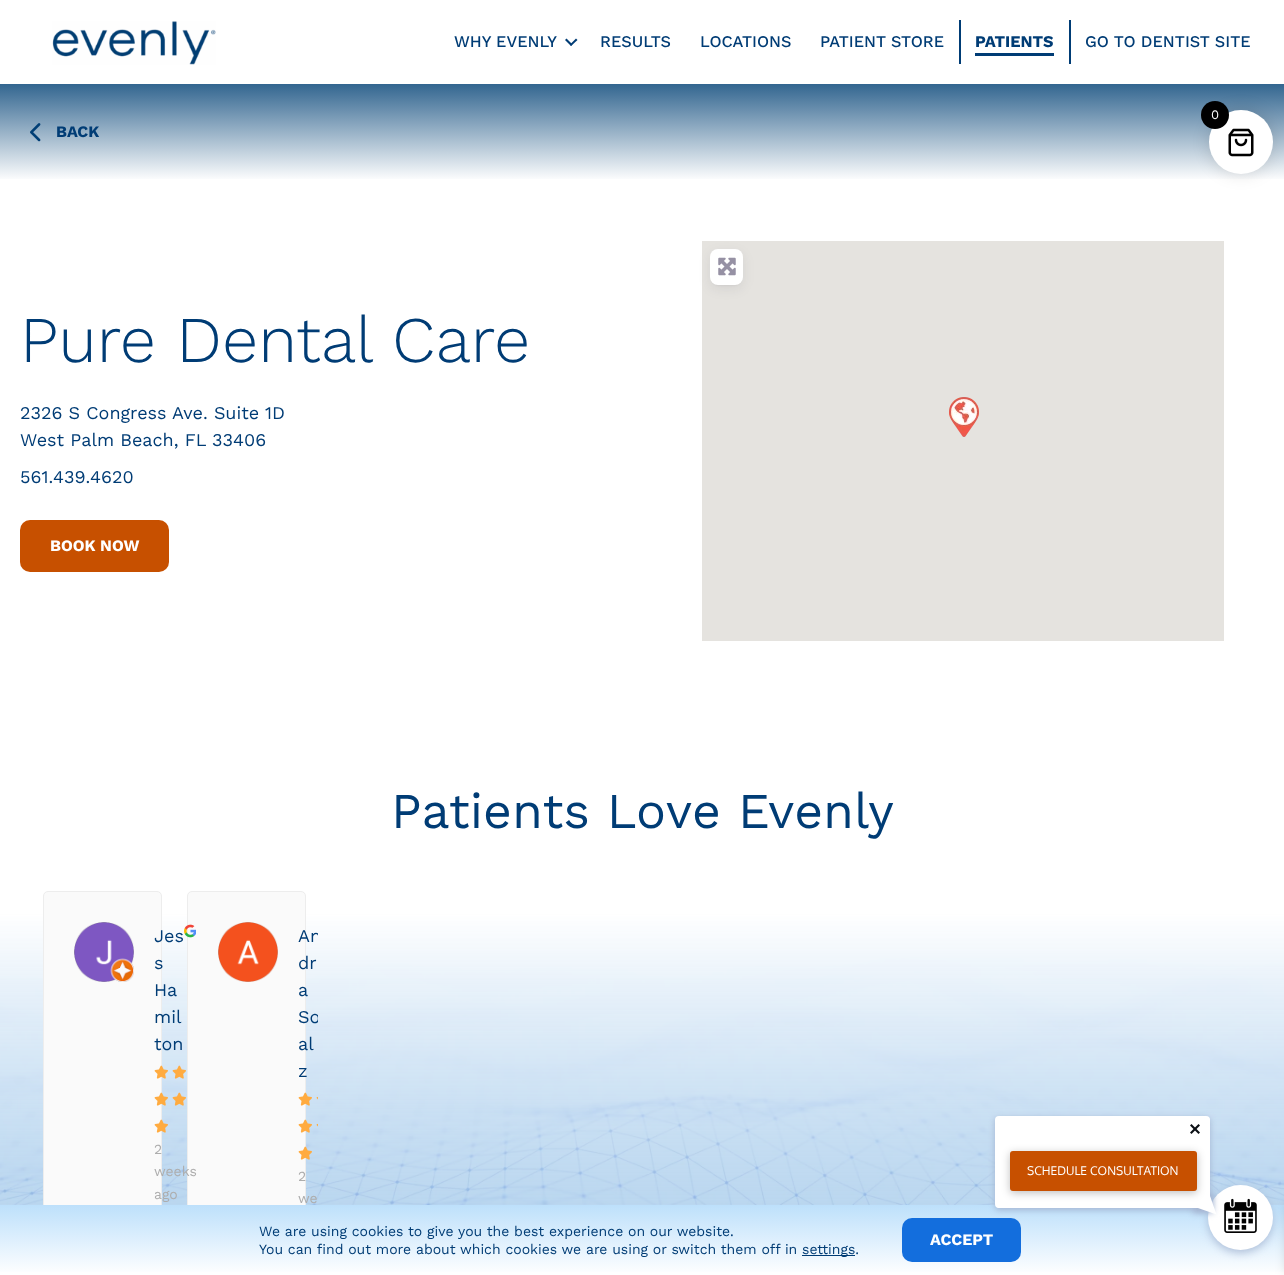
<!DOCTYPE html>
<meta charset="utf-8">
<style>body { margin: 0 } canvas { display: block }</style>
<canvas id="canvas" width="1284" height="1275"></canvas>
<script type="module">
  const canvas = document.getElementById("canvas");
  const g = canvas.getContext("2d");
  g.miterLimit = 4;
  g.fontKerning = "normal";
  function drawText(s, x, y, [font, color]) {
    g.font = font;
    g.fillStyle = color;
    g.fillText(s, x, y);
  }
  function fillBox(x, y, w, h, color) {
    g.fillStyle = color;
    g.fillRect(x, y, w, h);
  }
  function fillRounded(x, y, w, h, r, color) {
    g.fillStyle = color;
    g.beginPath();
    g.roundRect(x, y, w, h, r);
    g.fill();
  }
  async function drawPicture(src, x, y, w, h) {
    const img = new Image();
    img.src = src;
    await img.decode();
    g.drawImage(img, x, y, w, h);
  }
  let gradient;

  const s1 = ["500 16.25px Work Sans", "#003C75"];
  const s2 = ["bold 16.25px Work Sans", "#003C75"];
  const s3 = ["bold 16px Work Sans", "#003C75"];
  const s4 = ["300 65px Work Sans", "#003C75"];
  const s5 = ["18px Work Sans", "#003C75"];
  const s6 = ["bold 16px Work Sans", "#FFFFFF"];
  const s7 = ["50px Work Sans", "#003C75"];
  const s8 = ["14px Work Sans", "#ADADAD"];
  const s9 = ["13px Work Sans", "#FFFFFF"];
  const s10 = ["12px Oxygen", "#FFFFFF"];
  const s11 = ["14px Work Sans", "#003C75"];

  fillBox(0, 0, 1284, 1275, "#FFFFFF");
  g.fillStyle = "#CCCCCC";
  g.filter = "blur(2px)";
  g.beginPath();
  g.rect(0, -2, 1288, 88);
  g.fill();
  g.filter = "none";
  fillBox(0, 0, 1284, 84, "#FFFFFF");
  await drawPicture("pic1.png", 52, 21, 164, 44);
  drawText("WHY EVENLY", 454, 47, s1);
  g.beginPath();
  g.moveTo(576, 38.5);
  g.lineTo(577.5, 40);
  g.lineTo(571, 46);
  g.lineTo(570, 44.5);
  g.closePath();
  g.fill();
  g.beginPath();
  g.moveTo(566.5, 38.5);
  g.lineTo(572.5, 44.5);
  g.lineTo(571, 46);
  g.lineTo(565, 40);
  g.closePath();
  g.fill();
  drawText("RESULTS", 600, 47, s1);
  drawText("LOCATIONS", 700, 47, s1);
  drawText("PATIENT STORE", 820, 47, s1);
  fillBox(959, 20, 2, 44, "#003C75");
  drawText("PATIENTS", 975, 47, s2);
  fillBox(975, 53, 79, 3, "#003C75");
  fillBox(1069, 20, 2, 44, "#003C75");
  drawText("GO TO DENTIST SITE", 1085, 47, s1);
  gradient = g.createLinearGradient(642, 84, 642, 181);
  gradient.addColorStop(0, "#336690");
  gradient.addColorStop(1, "rgba(51, 102, 144, 0)");
  g.fillStyle = gradient;
  g.fillRect(0, 84, 1284, 95);
  await drawPicture("pic2.png", 30, 123, 11, 19);
  drawText("BACK", 56, 137, s3);
  drawText("Pure Dental Care", 20, 362, s4);
  drawText("2326 S Congress Ave. Suite 1D", 20, 419, s5);
  drawText("West Palm Beach, FL 33406", 20, 446, s5);
  drawText("561.439.4620", 20, 483, s5);
  fillRounded(20, 520, 149, 52, 10, "#C75000");
  drawText("BOOK NOW", 50, 551, s6);
  fillBox(702, 241, 522, 400, "#E5E3DF");
  g.fillStyle = "rgba(31, 27, 45, 0.08)";
  g.filter = "blur(6px)";
  g.beginPath();
  g.roundRect(710, 253, 33, 36, 8);
  g.fill();
  g.filter = "none";
  g.filter = "blur(1px)";
  g.beginPath();
  g.roundRect(712, 253, 29, 32, 6);
  g.fill();
  g.filter = "none";
  fillRounded(710, 249, 33, 36, 8, "#FFFFFF");
  await drawPicture("pic3.png", 718, 257, 18, 19);
  await drawPicture("pic4.png", 949, 397, 30, 40);
  await drawPicture("pic5.png", 0, 701, 1284, 504);
  drawText("Patients Love Evenly", 391, 828, s7);
  g.fillStyle = "#FAFAFA";
  g.beginPath();
  g.roundRect(43.5, 891.5, 118, 368, 4.5);
  g.fill();
  g.strokeStyle = "#EDEDED";
  g.stroke();
  await drawPicture("pic6.png", 74, 922, 60, 60);
  drawText("Jes", 154, 942, s5);
  drawText("s", 154, 969, s5);
  drawText("Ha", 154, 996, s5);
  drawText("mil", 154, 1023, s5);
  drawText("ton", 154, 1050, s5);
  g.fillStyle = "#FAFAFA";
  g.beginPath();
  g.roundRect(187.5, 891.5, 118, 368, 4.5);
  g.fill();
  g.stroke();
  await drawPicture("pic7.png", 184, 924, 12, 14);
  await drawPicture("pic8.png", 154, 1065, 14, 14);
  await drawPicture("pic9.png", 172, 1065, 14, 14);
  await drawPicture("pic10.png", 154, 1092, 14, 14);
  await drawPicture("pic11.png", 172, 1092, 14, 14);
  await drawPicture("pic12.png", 154, 1119, 14, 14);
  drawText("2", 154, 1154, s8);
  drawText("weeks", 154, 1176, s8);
  drawText("ago", 154, 1199, s8);
  await drawPicture("pic13.png", 218, 922, 60, 60);
  g.save();
  g.beginPath();
  g.rect(30, 881, 288, 384);
  g.clip();
  drawText("An", 298, 942, s5);
  g.restore();
  drawText("dr", 298, 969, s5);
  drawText("a", 298, 996, s5);
  g.save();
  g.beginPath();
  g.rect(30, 881, 288, 384);
  g.clip();
  drawText("So", 298, 1023, s5);
  g.restore();
  drawText("al", 298, 1050, s5);
  drawText("z", 298, 1077, s5);
  await drawPicture("pic14.png", 298, 1092, 14, 14);
  await drawPicture("pic15.png", 316, 1096, 2, 4);
  await drawPicture("pic16.png", 298, 1119, 14, 14);
  await drawPicture("pic17.png", 316, 1123, 2, 4);
  await drawPicture("pic18.png", 298, 1146, 14, 14);
  drawText("2", 298, 1181, s8);
  drawText("we", 298, 1203, s8);
  g.fillStyle = "rgba(0, 0, 0, 0.1)";
  g.filter = "blur(7.5px)";
  g.beginPath();
  g.roundRect(1207, 108, 68, 68, 34);
  g.fill();
  g.filter = "none";
  g.fillStyle = "#FFFFFF";
  g.beginPath();
  g.arc(1241, 142, 32, 0, Math.PI * 2);
  g.fill();
  await drawPicture("pic19.png", 1228, 128, 26, 29);
  g.fillStyle = "#000000";
  g.beginPath();
  g.arc(1215, 115, 14, 0, Math.PI * 2);
  g.fill();
  drawText("0", 1211, 119, s9);
  gradient = g.createLinearGradient(642, 1205, 642, 1275);
  gradient.addColorStop(0, "#BDE0FB");
  gradient.addColorStop(1, "#FFFFFF");
  g.fillStyle = gradient;
  g.fillRect(0, 1205, 1284, 67);
  g.fillStyle = "rgba(0, 0, 0, 0.1)";
  g.filter = "blur(5px)";
  g.beginPath();
  g.rect(1284, 1203, 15, 71);
  g.fill();
  g.filter = "none";
  g.fillStyle = "rgba(164, 180, 209, 0.83)";
  g.filter = "blur(4px)";
  g.beginPath();
  g.roundRect(1208, 1188, 65, 65, 32.5);
  g.fill();
  g.filter = "none";
  g.fillStyle = "#FFFFFF";
  g.beginPath();
  g.arc(1240.5, 1217.5, 32.5, 0, Math.PI * 2);
  g.fill();
  fillRounded(902, 1218, 119, 44, 10, "#136EDD");
  g.fillStyle = "#A4B4D1";
  g.filter = "blur(3px)";
  g.beginPath();
  g.roundRect(995, 1118, 215, 92, 4);
  g.fill();
  g.filter = "none";
  fillRounded(995, 1116, 215, 92, 4, "#FFFFFF");
  g.fillStyle = "#A4B4D1";
  g.filter = "blur(3px)";
  g.beginPath();
  g.rect(1193, 1193, 20, 20);
  g.fill();
  g.filter = "none";
  g.fillStyle = "#FFFFFF";
  g.beginPath();
  g.moveTo(1189.5, 1187.5);
  g.lineTo(1209.5, 1194.5);
  g.lineTo(1216.5, 1214.5);
  g.lineTo(1196.5, 1207.5);
  g.closePath();
  g.fill();
  fillRounded(996, 1117, 214, 91, 4, "#FFFFFF");
  g.fillStyle = "#0B0F15";
  g.beginPath();
  g.moveTo(1198.5, 1124);
  g.lineTo(1200, 1125.5);
  g.lineTo(1191.5, 1134);
  g.lineTo(1190, 1132.5);
  g.closePath();
  g.fill();
  g.beginPath();
  g.moveTo(1190, 1125.5);
  g.lineTo(1191.5, 1124);
  g.lineTo(1200, 1132.5);
  g.lineTo(1198.5, 1134);
  g.closePath();
  g.fill();
  g.fillStyle = "rgba(0, 0, 0, 0.25)";
  g.filter = "blur(4px)";
  g.beginPath();
  g.roundRect(1010, 1153, 187, 40, 3);
  g.fill();
  g.filter = "none";
  fillRounded(1010, 1151, 187, 40, 3, "#C75000");
  drawText("SCHEDULE CONSULTATION", 1027, 1175, s10);
  await drawPicture("pic20.png", 1224, 1198, 33, 35);
  drawText("We are using cookies to give you the best experience on our website.", 259, 1236, s11);
  drawText("You can find out more about which cookies we are using or switch them off in", 259, 1254, s11);
  fillBox(802, 1255, 53, 1, "#003C75");
  drawText("settings.", 802, 1254, s11);
  drawText("ACCEPT", 930, 1245, s6);
</script>
